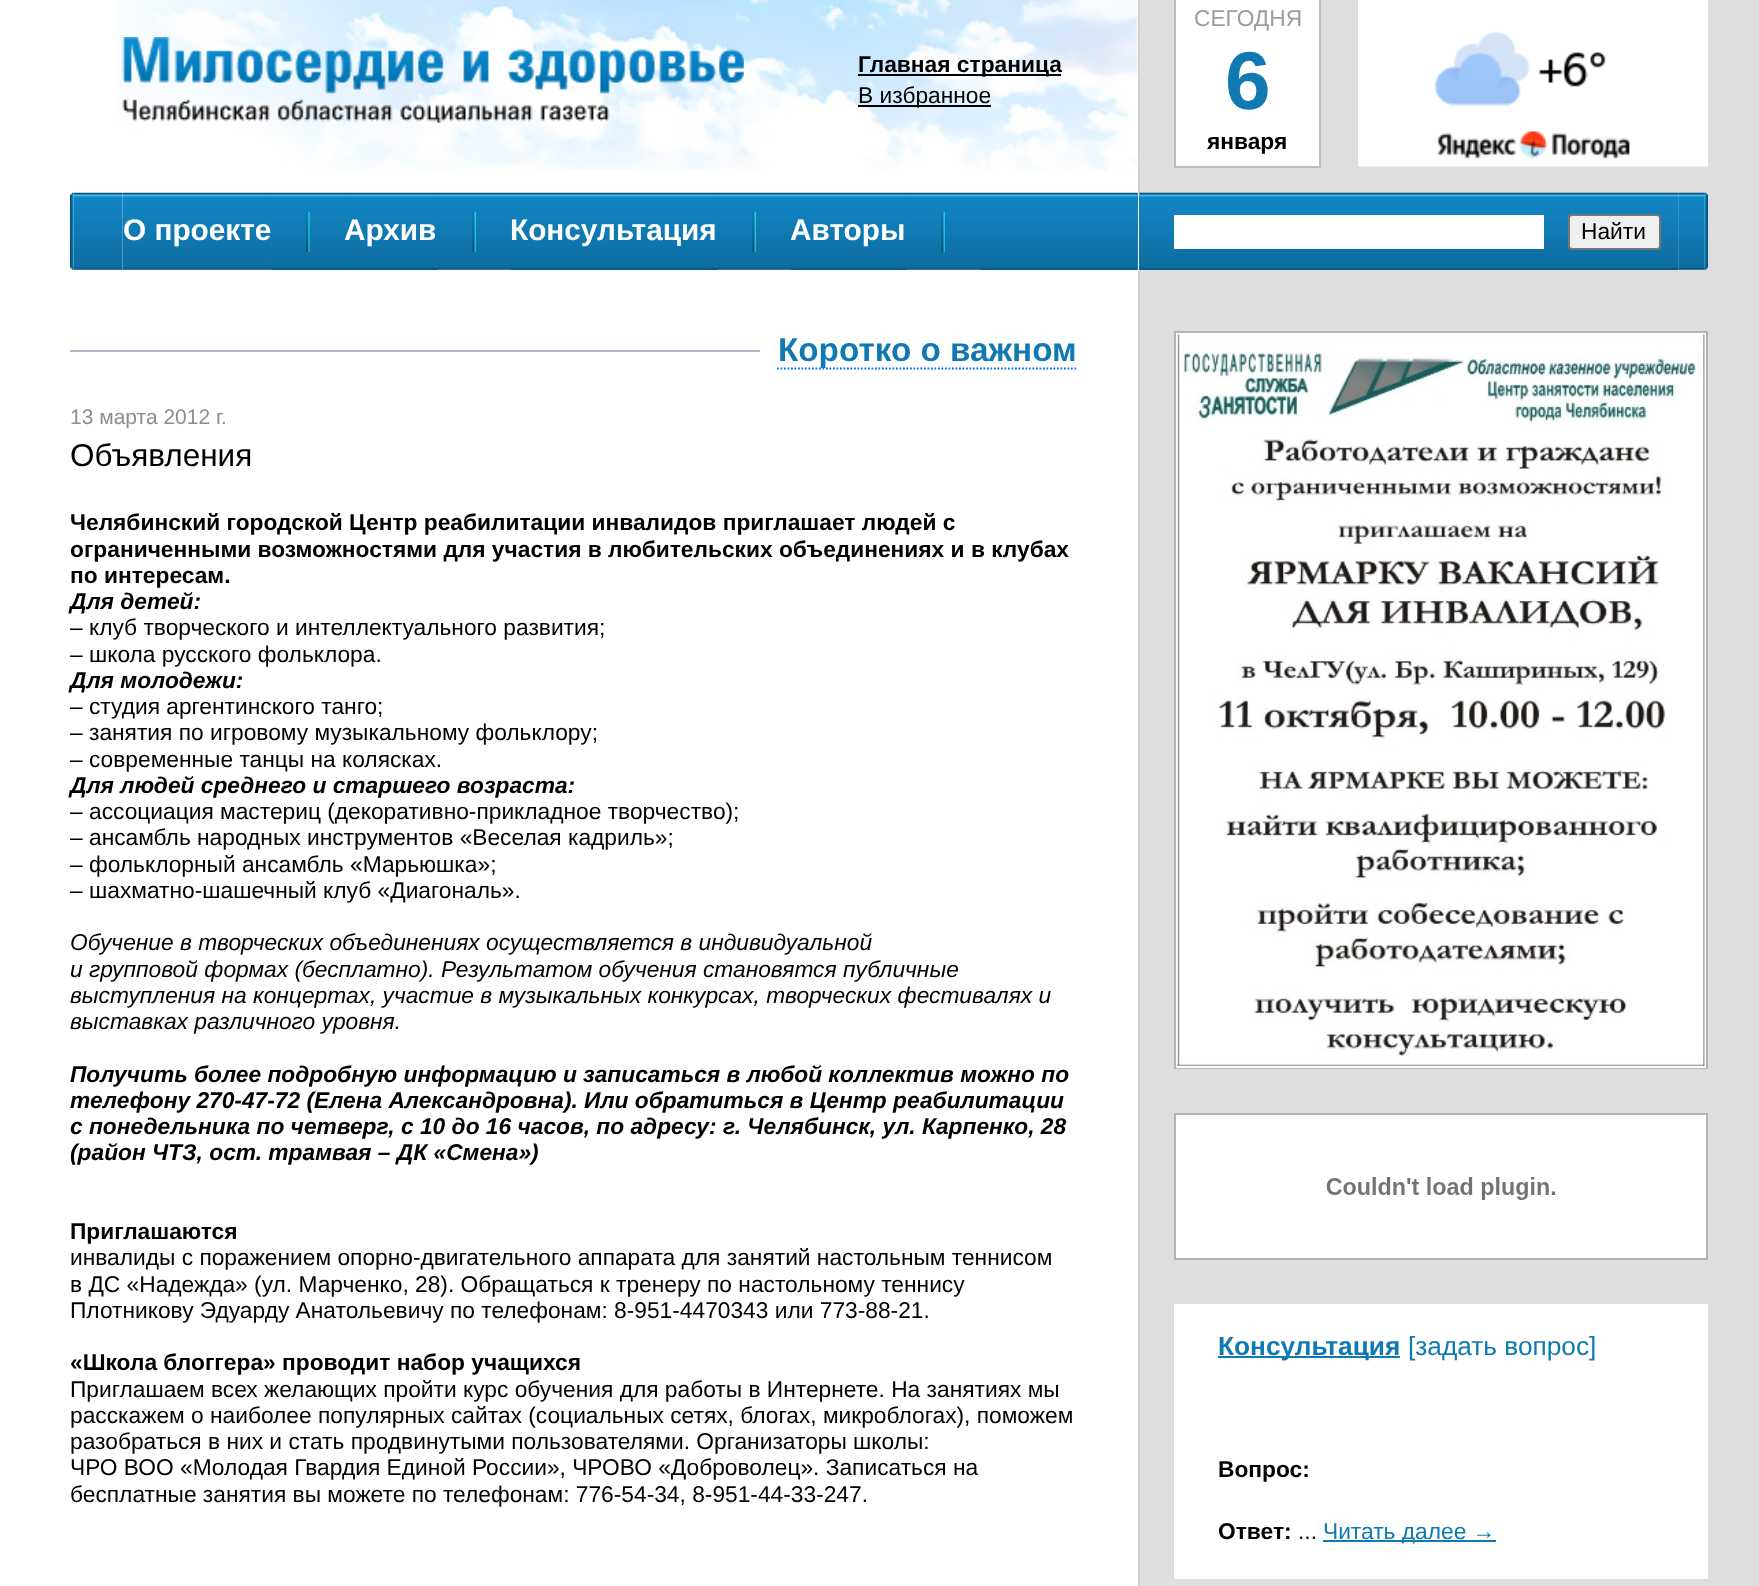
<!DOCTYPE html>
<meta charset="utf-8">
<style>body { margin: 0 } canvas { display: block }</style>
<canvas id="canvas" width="1759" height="1586"></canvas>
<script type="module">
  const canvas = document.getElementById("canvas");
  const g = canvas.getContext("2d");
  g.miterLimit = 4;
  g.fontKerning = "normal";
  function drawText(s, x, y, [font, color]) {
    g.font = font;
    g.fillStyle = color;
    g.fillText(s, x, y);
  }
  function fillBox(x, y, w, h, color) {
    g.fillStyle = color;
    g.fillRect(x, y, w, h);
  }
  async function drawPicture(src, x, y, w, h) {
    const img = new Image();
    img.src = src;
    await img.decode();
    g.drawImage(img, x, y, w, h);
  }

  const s1 = ["bold 22.75px Liberation Sans", "#000000"];
  const s2 = ["22.75px Liberation Sans", "#000000"];
  const s3 = ["22.75px Liberation Sans", "#9D9D9D"];
  const s4 = ["bold 82px Liberation Sans", "#1079B2"];
  const s5 = ["bold 29.75px Liberation Sans", "#FFFFFF"];
  const s6 = ["bold 33.25px Liberation Sans", "#1079B2"];
  const s7 = ["21px Liberation Sans", "#8D8D8D"];
  const s8 = ["31.5px Liberation Sans", "#000000"];
  const s9 = ["italic bold 22.75px Liberation Sans", "#000000"];
  const s10 = ["italic 22.75px Liberation Sans", "#000000"];
  const s11 = ["bold 26.25px Liberation Sans", "#1079B2"];
  const s12 = ["26.25px Liberation Sans", "#1079B2"];
  const s13 = ["22.75px Liberation Sans", "#1079B2"];

  fillBox(0, 0, 1759, 1586, "#FFFFFF");
  await drawPicture("pic1.png", 115, 0, 1023, 171);
  await drawPicture("pic2.png", 122, 37, 622, 86);
  fillBox(858, 74, 203, 2, "#000000");
  drawText("Главная страница", 858, 72, s1);
  fillBox(858, 105, 133, 2, "#000000");
  drawText("В избранное", 858, 103, s2);
  fillBox(1140, 0, 619, 193, "#DEDEDE");
  fillBox(1138, 0, 2, 193, "#D0D0D0");
  g.fillStyle = "#FFFFFF";
  g.beginPath();
  g.rect(1175, -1, 145, 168);
  g.fill();
  g.strokeStyle = "#BEBDBD";
  g.lineWidth = 2;
  g.stroke();
  drawText("СЕГОДНЯ", 1194, 26, s3);
  drawText("6", 1225, 109, s4);
  drawText("января", 1207, 149, s1);
  await drawPicture("pic3.png", 1358, 0, 350, 167);
  await drawPicture("pic4.png", 70, 192, 4, 78);
  await drawPicture("pic6.png", 122, 192, 150, 78);
  await drawPicture("pic5.png", 73, 192, 50, 78);
  drawText("О проекте", 123, 240, s5);
  fillBox(271, 193, 167, 77, "#107CB5");
  await drawPicture("pic7.png", 271, 192, 74, 78);
  await drawPicture("pic8.png", 306, 212, 4, 41);
  await drawPicture("pic12.png", 344, 192, 94, 78);
  await drawPicture("pic9.png", 437, 192, 74, 78);
  await drawPicture("pic10.png", 472, 212, 4, 41);
  fillBox(511, 193, 207, 77, "#107CB5");
  await drawPicture("pic13.png", 511, 192, 207, 78);
  await drawPicture("pic9.png", 717, 192, 74, 78);
  await drawPicture("pic10.png", 752, 212, 4, 41);
  fillBox(791, 193, 116, 77, "#107CB5");
  await drawPicture("pic14.png", 791, 192, 116, 78);
  await drawPicture("pic9.png", 906, 192, 74, 78);
  await drawPicture("pic10.png", 941, 212, 4, 41);
  fillBox(980, 193, 158, 77, "#107CB5");
  await drawPicture("pic11.png", 980, 192, 158, 78);
  drawText("Архив", 344, 240, s5);
  drawText("Консультация", 510, 240, s5);
  drawText("Авторы", 790, 240, s5);
  fillBox(1678, 193, 81, 77, "#DEDEDE");
  fillBox(1139, 193, 539, 77, "#107CB5");
  await drawPicture("pic15.png", 1139, 192, 540, 78);
  fillBox(1174, 215, 370, 34, "#FFFFFF");
  g.fillStyle = "#EFEFEF";
  g.beginPath();
  g.roundRect(1569, 215, 91, 34, 3);
  g.fill();
  g.strokeStyle = "#767676";
  g.stroke();
  drawText("Найти", 1581, 239, s2);
  await drawPicture("pic16.png", 1678, 192, 27, 78);
  await drawPicture("pic17.png", 1704, 192, 4, 78);
  fillBox(70, 350, 690, 2, "#B1B5CD");
  g.beginPath();
  g.moveTo(777, 368.5);
  g.lineTo(1076, 368.5);
  g.strokeStyle = "#0066FF";
  g.lineWidth = 1.8;
  g.setLineDash([1.75, 1.75]);
  g.stroke();
  drawText("Коротко о важном", 778, 361, s6);
  drawText("13 марта 2012 г.", 70, 424, s7);
  drawText("Объявления", 70, 466, s8);
  drawText("Челябинский городской Центр реабилитации инвалидов приглашает людей с", 70, 530, s1);
  drawText("ограниченными возможностями для участия в любительских объединениях и в клубах", 70, 557, s1);
  drawText("по интересам.", 70, 583, s1);
  drawText("Для детей:", 70, 609, s9);
  drawText("– клуб творческого и интеллектуального развития;", 70, 635, s2);
  drawText("– школа русского фольклора.", 70, 662, s2);
  drawText("Для молодежи:", 70, 688, s9);
  drawText("– студия аргентинского танго;", 70, 714, s2);
  drawText("– занятия по игровому музыкальному фольклору;", 70, 740, s2);
  drawText("– современные танцы на колясках.", 70, 767, s2);
  drawText("Для людей среднего и старшего возраста:", 70, 793, s9);
  drawText("– ассоциация мастериц (декоративно-прикладное творчество);", 70, 819, s2);
  drawText("– ансамбль народных инструментов «Веселая кадриль»;", 70, 845, s2);
  drawText("– фольклорный ансамбль «Марьюшка»;", 70, 872, s2);
  drawText("– шахматно-шашечный клуб «Диагональ».", 70, 898, s2);
  drawText("Обучение в творческих объединениях осуществляется в индивидуальной", 70, 950, s10);
  drawText("и групповой формах (бесплатно). Результатом обучения становятся публичные", 70, 977, s10);
  drawText("выступления на концертах, участие в музыкальных конкурсах, творческих фестивалях и", 70, 1003, s10);
  drawText("выставках различного уровня.", 70, 1029, s10);
  drawText("Получить более подробную информацию и записаться в любой коллектив можно по", 70, 1082, s9);
  drawText("телефону 270-47-72 (Елена Александровна). Или обратиться в Центр реабилитации", 70, 1108, s9);
  drawText("с понедельника по четверг, с 10 до 16 часов, по адресу: г. Челябинск, ул. Карпенко, 28", 70, 1134, s9);
  drawText("(район ЧТЗ, ост. трамвая – ДК «Смена»)", 70, 1160, s9);
  drawText("Приглашаются", 70, 1239, s1);
  drawText("инвалиды с поражением опорно-двигательного аппарата для занятий настольным теннисом", 70, 1265, s2);
  drawText("в ДС «Надежда» (ул. Марченко, 28). Обращаться к тренеру по настольному теннису", 70, 1292, s2);
  drawText("Плотникову Эдуарду Анатольевичу по телефонам: 8-951-4470343 или 773-88-21.", 70, 1318, s2);
  drawText("«Школа блоггера» проводит набор учащихся", 70, 1370, s1);
  drawText("Приглашаем всех желающих пройти курс обучения для работы в Интернете. На занятиях мы", 70, 1397, s2);
  drawText("расскажем о наиболее популярных сайтах (социальных сетях, блогах, микроблогах), поможем", 70, 1423, s2);
  drawText("разобраться в них и стать продвинутыми пользователями. Организаторы школы:", 70, 1449, s2);
  drawText("ЧРО ВОО «Молодая Гвардия Единой России», ЧРОВО «Доброволец». Записаться на", 70, 1475, s2);
  drawText("бесплатные занятия вы можете по телефонам: 776-54-34, 8-951-44-33-247.", 70, 1502, s2);
  fillBox(1140, 270, 619, 1316, "#DEDEDE");
  fillBox(1138, 270, 2, 1316, "#D0D0D0");
  g.strokeStyle = "#B4B4B4";
  g.lineWidth = 2;
  g.setLineDash([]);
  g.strokeRect(1175, 332, 532, 736);
  g.strokeStyle = "#FFFFFF";
  g.strokeRect(1177, 334, 528, 733);
  await drawPicture("pic18.png", 1177, 334, 528, 732);
  g.fillStyle = "#FFFFFF";
  g.beginPath();
  g.rect(1175, 1114, 532, 145);
  g.fill();
  g.strokeStyle = "#B4B4B4";
  g.stroke();
  await drawPicture("pic19.png", 1326, 1177, 230, 23);
  fillBox(1174, 1304, 534, 275, "#FFFFFF");
  fillBox(1218, 1356, 182, 2, "#1079B1");
  drawText("Консультация", 1218, 1355, s11);
  drawText("[задать вопрос]", 1408, 1355, s12);
  drawText("Вопрос:", 1218, 1477, s1);
  drawText("Ответ:", 1218, 1539, s1);
  drawText("...", 1298, 1539, s2);
  fillBox(1323, 1540, 173, 2, "#1079B1");
  drawText("Читать далее →", 1323, 1539, s13);
</script>
